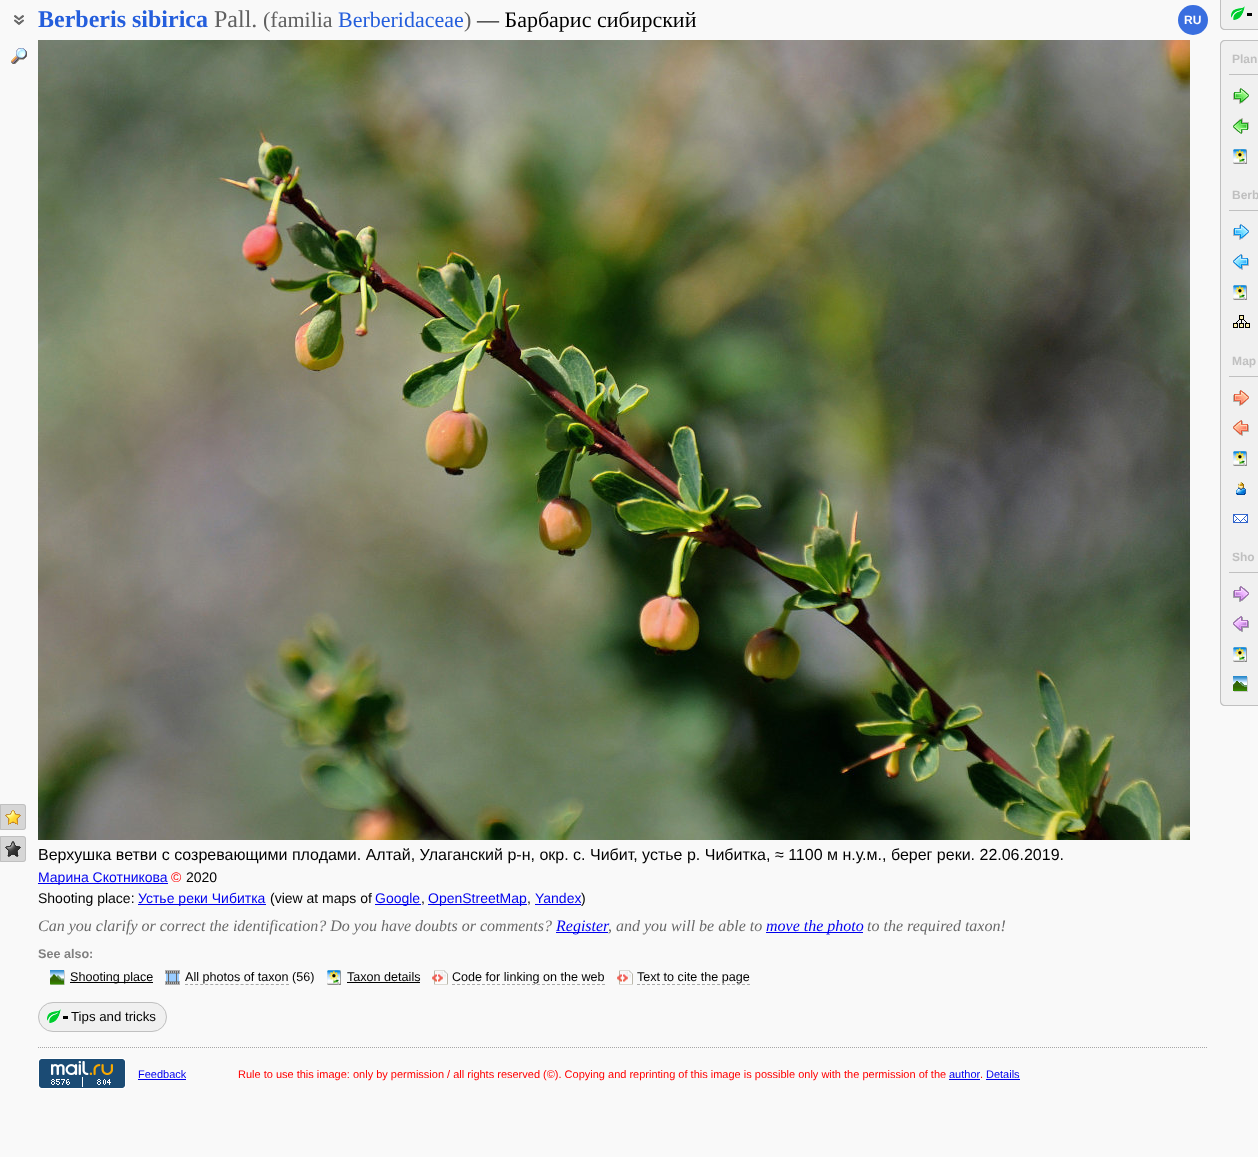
<!DOCTYPE html>
<meta charset="utf-8">
<style>body { margin: 0 } canvas { display: block }</style>
<canvas id="canvas" width="1258" height="1157"></canvas>
<script type="module">
  const canvas = document.getElementById("canvas");
  const g = canvas.getContext("2d");
  g.miterLimit = 4;
  g.fontKerning = "normal";
  function drawText(s, x, y, [font, color]) {
    g.font = font;
    g.fillStyle = color;
    g.fillText(s, x, y);
  }
  function fillBox(x, y, w, h, color) {
    g.fillStyle = color;
    g.fillRect(x, y, w, h);
  }
  function fillRounded(x, y, w, h, r, color) {
    g.fillStyle = color;
    g.beginPath();
    g.roundRect(x, y, w, h, r);
    g.fill();
  }
  async function drawPicture(src, x, y, w, h) {
    const img = new Image();
    img.src = src;
    await img.decode();
    g.drawImage(img, x, y, w, h);
  }

  const s1 = ["bold 24px Liberation Serif", "#245EDC"];
  const s2 = ["24px Liberation Serif", "#606060"];
  const s3 = ["22px Liberation Serif", "#606060"];
  const s4 = ["22px Liberation Serif", "#245EDC"];
  const s5 = ["22px Liberation Serif", "#000000"];
  const s6 = ["bold 12px Liberation Sans", "#FEFEFE"];
  const s7 = ["bold 12px Liberation Sans", "#C0C0C0"];
  const s8 = ["16px Liberation Sans", "#000000"];
  const s9 = ["14px Liberation Sans", "#0000EE"];
  const s10 = ["14px Liberation Sans", "#FF0000"];
  const s11 = ["14px Liberation Sans", "#000000"];
  const s12 = ["italic 16px Liberation Serif", "#696969"];
  const s13 = ["italic 16px Liberation Serif", "#0000EE"];
  const s14 = ["bold 12.6px Liberation Sans", "#808080"];
  const s15 = ["12.6px Liberation Sans", "#000000"];
  const s16 = ["13.25px Liberation Sans", "#000000"];
  const s17 = ["11px Liberation Sans", "#0000EE"];
  const s18 = ["11px Liberation Sans", "#FF0000"];

  fillBox(0, 0, 1258, 1157, "#F9F9F9");
  await drawPicture("pic1.png", 14, 15, 10, 10);
  drawText("Berberis sibirica", 38, 27, s1);
  drawText("Pall.", 214, 27, s2);
  drawText("(familia", 263, 27, s3);
  drawText("Berberidaceae", 338, 27, s4);
  drawText(")", 464, 27, s3);
  drawText("— Барбарис сибирский", 477, 27, s5);
  g.fillStyle = "#396EDF";
  g.beginPath();
  g.arc(1193, 20, 15, 0, Math.PI * 2);
  g.fill();
  drawText("RU", 1184, 24, s6);
  await drawPicture("pic2.png", 11, 48, 16, 16);
  g.fillStyle = "#D6D6D6";
  g.beginPath();
  g.roundRect(0, 804, 26, 26, [0, 3, 3, 0]);
  g.fill();
  await drawPicture("pic3.png", 5, 810, 16, 15);
  g.beginPath();
  g.roundRect(0.5, 804.5, 25, 25, [0, 2.5, 2.5, 0]);
  g.strokeStyle = "#C0C0C0";
  g.stroke();
  g.beginPath();
  g.roundRect(0, 836, 26, 26, [0, 3, 3, 0]);
  g.fill();
  await drawPicture("pic4.png", 5, 841, 16, 16);
  g.beginPath();
  g.roundRect(0.5, 836.5, 25, 25, [0, 2.5, 2.5, 0]);
  g.stroke();
  g.fillStyle = "#F0F0F0";
  g.beginPath();
  g.roundRect(1220, 0, 38, 30, [0, 0, 0, 5]);
  g.fill();
  await drawPicture("pic5.png", 1231, 6, 14, 14);
  g.fillStyle = "#C0C0C0";
  g.beginPath();
  g.moveTo(1220, 0);
  g.lineTo(1258, 0);
  g.lineTo(1258, 30);
  g.lineTo(1225, 30);
  g.bezierCurveTo(1222, 30, 1220, 28, 1220, 25);
  g.closePath();
  g.moveTo(1221, 0);
  g.lineTo(1258, 0);
  g.lineTo(1258, 29);
  g.lineTo(1225, 29);
  g.bezierCurveTo(1223, 29, 1221, 27, 1221, 25);
  g.closePath();
  g.fill("evenodd");
  fillBox(1247, 13, 5, 3, "#000000");
  g.fillStyle = "#F0F0F0";
  g.beginPath();
  g.moveTo(1225, 40);
  g.lineTo(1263, 40);
  g.lineTo(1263, 706);
  g.lineTo(1225, 706);
  g.bezierCurveTo(1222, 706, 1220, 704, 1220, 701);
  g.lineTo(1220, 45);
  g.bezierCurveTo(1220, 42, 1222, 40, 1225, 40);
  g.closePath();
  g.fill();
  g.fillStyle = "#C0C0C0";
  g.beginPath();
  g.moveTo(1225, 40);
  g.lineTo(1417, 40);
  g.lineTo(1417, 706);
  g.lineTo(1225, 706);
  g.bezierCurveTo(1222, 706, 1220, 704, 1220, 701);
  g.lineTo(1220, 45);
  g.bezierCurveTo(1220, 42, 1222, 40, 1225, 40);
  g.closePath();
  g.moveTo(1225, 41);
  g.lineTo(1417, 41);
  g.lineTo(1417, 705);
  g.lineTo(1225, 705);
  g.bezierCurveTo(1223, 705, 1221, 703, 1221, 701);
  g.lineTo(1221, 45);
  g.bezierCurveTo(1221, 43, 1223, 41, 1225, 41);
  g.closePath();
  g.fill("evenodd");
  fillBox(1229, 74, 29, 1, "#C0C0C0");
  drawText("Plan", 1232, 63, s7);
  await drawPicture("pic6.png", 1233, 88, 16, 16);
  await drawPicture("pic7.png", 1233, 118, 16, 16);
  await drawPicture("pic8.png", 1233, 149, 14, 15);
  fillBox(1229, 210, 29, 1, "#C0C0C0");
  drawText("Berb", 1232, 199, s7);
  await drawPicture("pic9.png", 1233, 224, 16, 16);
  await drawPicture("pic10.png", 1233, 254, 16, 16);
  await drawPicture("pic8.png", 1233, 285, 14, 15);
  await drawPicture("pic11.png", 1233, 315, 17, 13);
  fillBox(1229, 376, 29, 1, "#C0C0C0");
  drawText("Мар", 1232, 365, s7);
  await drawPicture("pic12.png", 1233, 390, 16, 16);
  await drawPicture("pic13.png", 1233, 420, 16, 16);
  await drawPicture("pic8.png", 1233, 451, 14, 15);
  await drawPicture("pic14.png", 1236, 482, 10, 13);
  await drawPicture("pic15.png", 1233, 514, 15, 9);
  fillBox(1229, 572, 29, 1, "#C0C0C0");
  drawText("Sho", 1232, 561, s7);
  await drawPicture("pic16.png", 1233, 586, 16, 16);
  await drawPicture("pic17.png", 1233, 616, 16, 16);
  await drawPicture("pic8.png", 1233, 647, 14, 15);
  await drawPicture("pic18.png", 1233, 676, 15, 16);
  await drawPicture("pic19.png", 38, 40, 1152, 800);
  drawText("Верхушка ветви с созревающими плодами. Алтай, Улаганский р-н, окр. с. Чибит, устье р. Чибитка, ≈ 1100 м н.у.м., берег реки. 22.06.2019.", 38, 860, s8);
  fillBox(38, 883, 130, 1, "#0000EE");
  drawText("Марина Скотникова", 38, 882, s9);
  drawText("©", 171, 882, s10);
  drawText("2020", 186, 882, s11);
  drawText("Shooting place:", 38, 903, s11);
  fillBox(138, 904, 128, 1, "#0000EE");
  drawText("Устье реки Чибитка", 138, 903, s9);
  drawText("(view at maps of", 270, 903, s11);
  fillBox(375, 904, 46, 1, "#0000EE");
  drawText("Google", 375, 903, s9);
  drawText(",", 421, 903, s11);
  fillBox(428, 904, 99, 1, "#0000EE");
  drawText("OpenStreetMap", 428, 903, s9);
  drawText(",", 527, 903, s11);
  drawText("Yandex", 535, 903, s9);
  fillBox(535, 904, 46, 1, "#0000EE");
  drawText(")", 581, 903, s11);
  drawText("Can you clarify or correct the identification? Do you have doubts or comments?", 38, 931, s12);
  fillBox(556, 932, 52, 1, "#0000EE");
  drawText("Register", 556, 931, s13);
  drawText(", and you will be able to", 608, 931, s12);
  fillBox(766, 932, 97, 1, "#0000EE");
  drawText("move the photo", 766, 931, s13);
  drawText("to the required taxon!", 867, 931, s12);
  drawText("See also:", 38, 958, s14);
  await drawPicture("pic20.png", 50, 970, 15, 15);
  fillBox(70, 982, 83, 1, "#000000");
  drawText("Shooting place", 70, 981, s15);
  await drawPicture("pic21.png", 165, 970, 15, 15);
  drawText("All photos of taxon (56)", 185, 981, s15);
  g.beginPath();
  g.moveTo(185, 984.5);
  g.lineTo(289, 984.5);
  g.strokeStyle = "#A9A9A9";
  g.setLineDash([3, 2.05]);
  g.stroke();
  await drawPicture("pic8.png", 327, 970, 14, 15);
  drawText("Taxon details", 347, 981, s15);
  fillBox(347, 982, 73, 1, "#000000");
  await drawPicture("pic22.png", 432, 970, 16, 15);
  drawText("Code for linking on the web", 452, 981, s15);
  g.beginPath();
  g.moveTo(452, 984.5);
  g.lineTo(605, 984.5);
  g.setLineDash([3, 2]);
  g.stroke();
  await drawPicture("pic22.png", 617, 970, 16, 15);
  drawText("Text to cite the page", 637, 981, s15);
  g.beginPath();
  g.moveTo(637, 984.5);
  g.lineTo(750, 984.5);
  g.stroke();
  fillRounded(38, 1002, 129, 30, 15, "#F0F0F0");
  fillBox(63, 1016, 5, 3, "#000000");
  g.beginPath();
  g.roundRect(38.5, 1002.5, 128, 29, 14.5);
  g.strokeStyle = "#C0C0C0";
  g.setLineDash([]);
  g.stroke();
  await drawPicture("pic5.png", 47, 1009, 14, 14);
  drawText("Tips and tricks", 71, 1021, s16);
  g.beginPath();
  g.moveTo(38, 1047.5);
  g.lineTo(1208, 1047.5);
  g.strokeStyle = "#A6A6A6";
  g.setLineDash([1, 1]);
  g.stroke();
  await drawPicture("pic23.png", 38, 1058, 88, 31);
  drawText("Feedback", 138, 1078, s17);
  fillBox(138, 1079, 48, 1, "#0000EE");
  drawText("Rule to use this image: only by permission / all rights reserved (©). Copying and reprinting of this image is possible only with the permission of the", 238, 1078, s18);
  drawText("author", 949, 1078, s17);
  drawText("Details", 986, 1078, s17);
  drawText(".", 980, 1078, s18);
  fillBox(949, 1079, 31, 1, "#0000EE");
  fillBox(986, 1079, 34, 1, "#0000EE");
</script>
